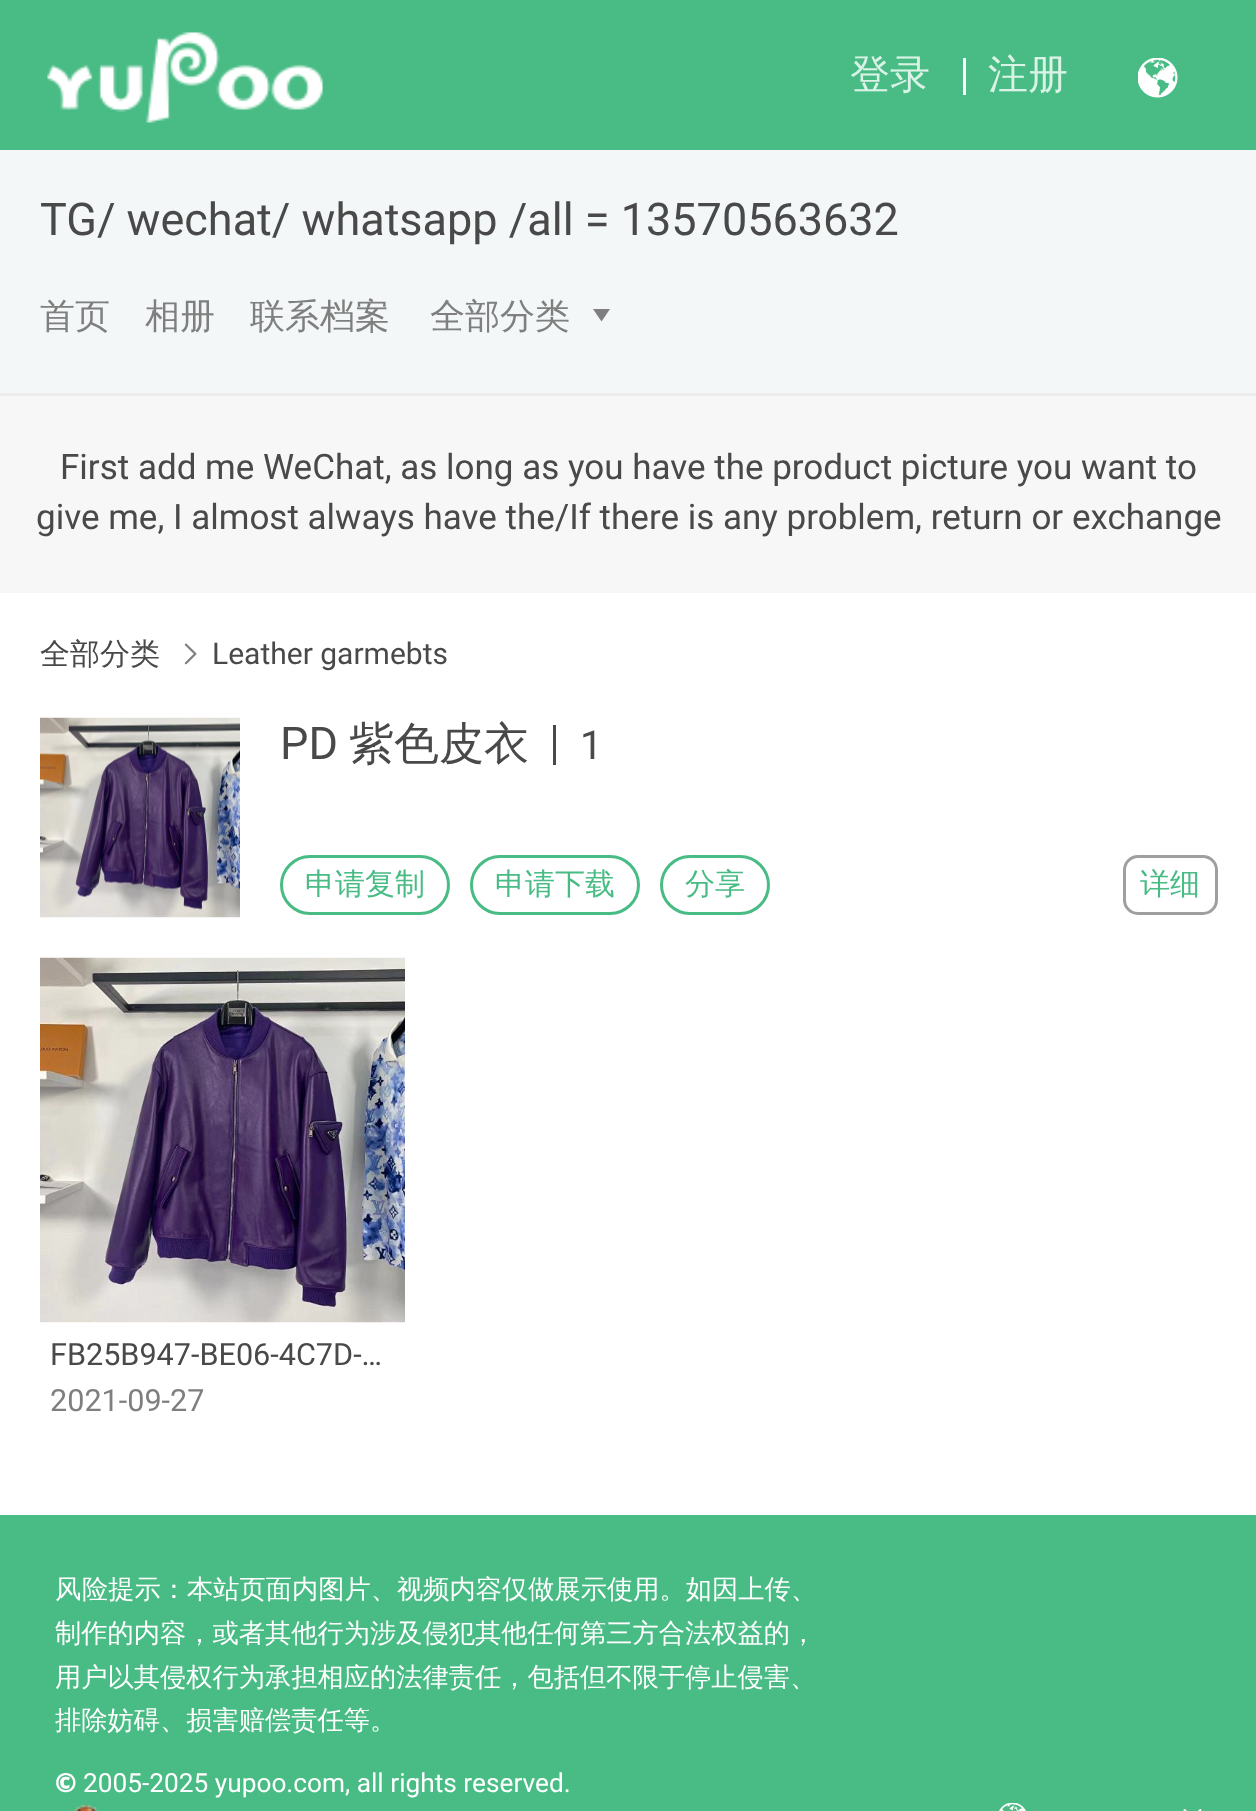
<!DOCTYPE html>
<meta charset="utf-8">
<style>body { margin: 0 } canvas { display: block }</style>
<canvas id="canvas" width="1256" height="1811"></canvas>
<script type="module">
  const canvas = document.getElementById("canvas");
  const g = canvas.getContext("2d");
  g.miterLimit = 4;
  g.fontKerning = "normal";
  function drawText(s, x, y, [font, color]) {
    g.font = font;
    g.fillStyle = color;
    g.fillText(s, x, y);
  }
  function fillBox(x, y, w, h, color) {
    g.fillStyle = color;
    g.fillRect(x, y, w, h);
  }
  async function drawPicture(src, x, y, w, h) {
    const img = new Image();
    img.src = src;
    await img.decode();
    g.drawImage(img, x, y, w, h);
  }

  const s1 = ["500 40px WenQuanYi Zen Hei", "#DBF2E7"];
  const s2 = ["45px Roboto", "#494949"];
  const s3 = ["500 35px WenQuanYi Zen Hei", "#7F7F7F"];
  const s4 = ["35px Roboto", "#494949"];
  const s5 = ["500 30px WenQuanYi Zen Hei", "#494949"];
  const s6 = ["30px Roboto", "#494949"];
  const s7 = ["500 45px WenQuanYi Zen Hei", "#494949"];
  const s8 = ["40px Roboto", "#494949"];
  const s9 = ["500 30px WenQuanYi Zen Hei", "#49BC85"];
  const s10 = ["30.6px Roboto", "#494949"];
  const s11 = ["30.6px Roboto", "#7F7F7F"];
  const s12 = ["26.25px Noto Sans", "#FFFFFF"];
  const s13 = ["500 26.25px WenQuanYi Zen Hei", "#FFFFFF"];
  const s14 = ["900 26.25px Noto Sans", "#FFFFFF"];
  const s15 = ["26.25px Roboto", "#FFFFFF"];

  fillBox(0, 0, 1256, 1811, "#FFFFFF");
  fillBox(0, 0, 1256, 150, "#49BC85");
  await drawPicture("pic1.png", 47, 32, 276, 91);
  drawText("登录", 850, 88, s1);
  fillBox(963, 58, 3, 37, "#FFFFFF");
  drawText("注册", 988, 88, s1);
  await drawPicture("pic2.png", 1138, 58, 40, 40);
  fillBox(0, 150, 1256, 243, "#F3F7F7");
  drawText("TG/ wechat/ whatsapp /all = 13570563632", 40, 235, s2);
  drawText("首页", 40, 328, s3);
  drawText("相册", 145, 328, s3);
  drawText("联系档案", 250, 328, s3);
  drawText("全部分类", 430, 328, s3);
  g.beginPath();
  g.moveTo(601.5, 321.5);
  g.lineTo(593, 309);
  g.lineTo(610, 309);
  g.closePath();
  g.fill();
  fillBox(0, 396, 1256, 197, "#F7F7F7");
  fillBox(0, 393, 1256, 3, "#ECECEC");
  drawText("First add me WeChat, as long as you have the product picture you want to", 60, 479, s4);
  drawText("give me, I almost always have the/If there is any problem, return or exchange", 36, 529, s4);
  drawText("全部分类", 40, 664, s5);
  await drawPicture("pic3.png", 184, 643, 13, 22);
  drawText("Leather garmebts", 212, 664, s6);
  await drawPicture("pic4.png", 40, 717, 200, 201);
  drawText("PD", 280, 759, s2);
  drawText("紫色皮衣", 349, 759, s7);
  fillBox(553, 725, 3, 40, "#494949");
  drawText("1", 580, 759, s8);
  g.beginPath();
  g.roundRect(281.5, 856.5, 167, 57, 28.5);
  g.strokeStyle = "#49BC85";
  g.lineWidth = 3;
  g.stroke();
  drawText("申请复制", 305, 894, s9);
  g.beginPath();
  g.roundRect(471.5, 856.5, 167, 57, 28.5);
  g.stroke();
  drawText("申请下载", 495, 894, s9);
  g.beginPath();
  g.roundRect(661.5, 856.5, 107, 57, 28.5);
  g.stroke();
  drawText("分享", 685, 894, s9);
  g.beginPath();
  g.roundRect(1124.5, 856.5, 92, 57, 13.5);
  g.strokeStyle = "#9F9F9F";
  g.stroke();
  drawText("详细", 1140, 894, s9);
  await drawPicture("pic5.png", 40, 957, 365, 366);
  drawText("FB25B947-BE06-4C7D-…", 50, 1365, s10);
  drawText("2021-09-27", 50, 1411, s11);
  fillBox(0, 1515, 1256, 296, "#49BC85");
  drawText("风", 55, 1598, s12);
  drawText("险提示：本站页面内图片、视频内容仅做展示使用。如因上传、", 82, 1598, s13);
  drawText("制作的内容，或者其他行为涉及侵犯其他任何第三方合法权益的，", 55, 1642, s13);
  drawText("用户以其侵权行为承担相应的法律责任，包括但不限于停止侵害、", 55, 1686, s13);
  drawText("排除妨碍、损害赔偿责任等。", 55, 1729, s13);
  drawText("©", 55, 1792, s14);
  drawText("2005-2025 yupoo.com, all rights reserved.", 83, 1792, s15);
  await drawPicture("pic6.png", 73, 1805, 26, 6);
  await drawPicture("pic7.png", 999, 1803, 27, 8);
  await drawPicture("pic8.png", 1183, 1809, 19, 2);
</script>
